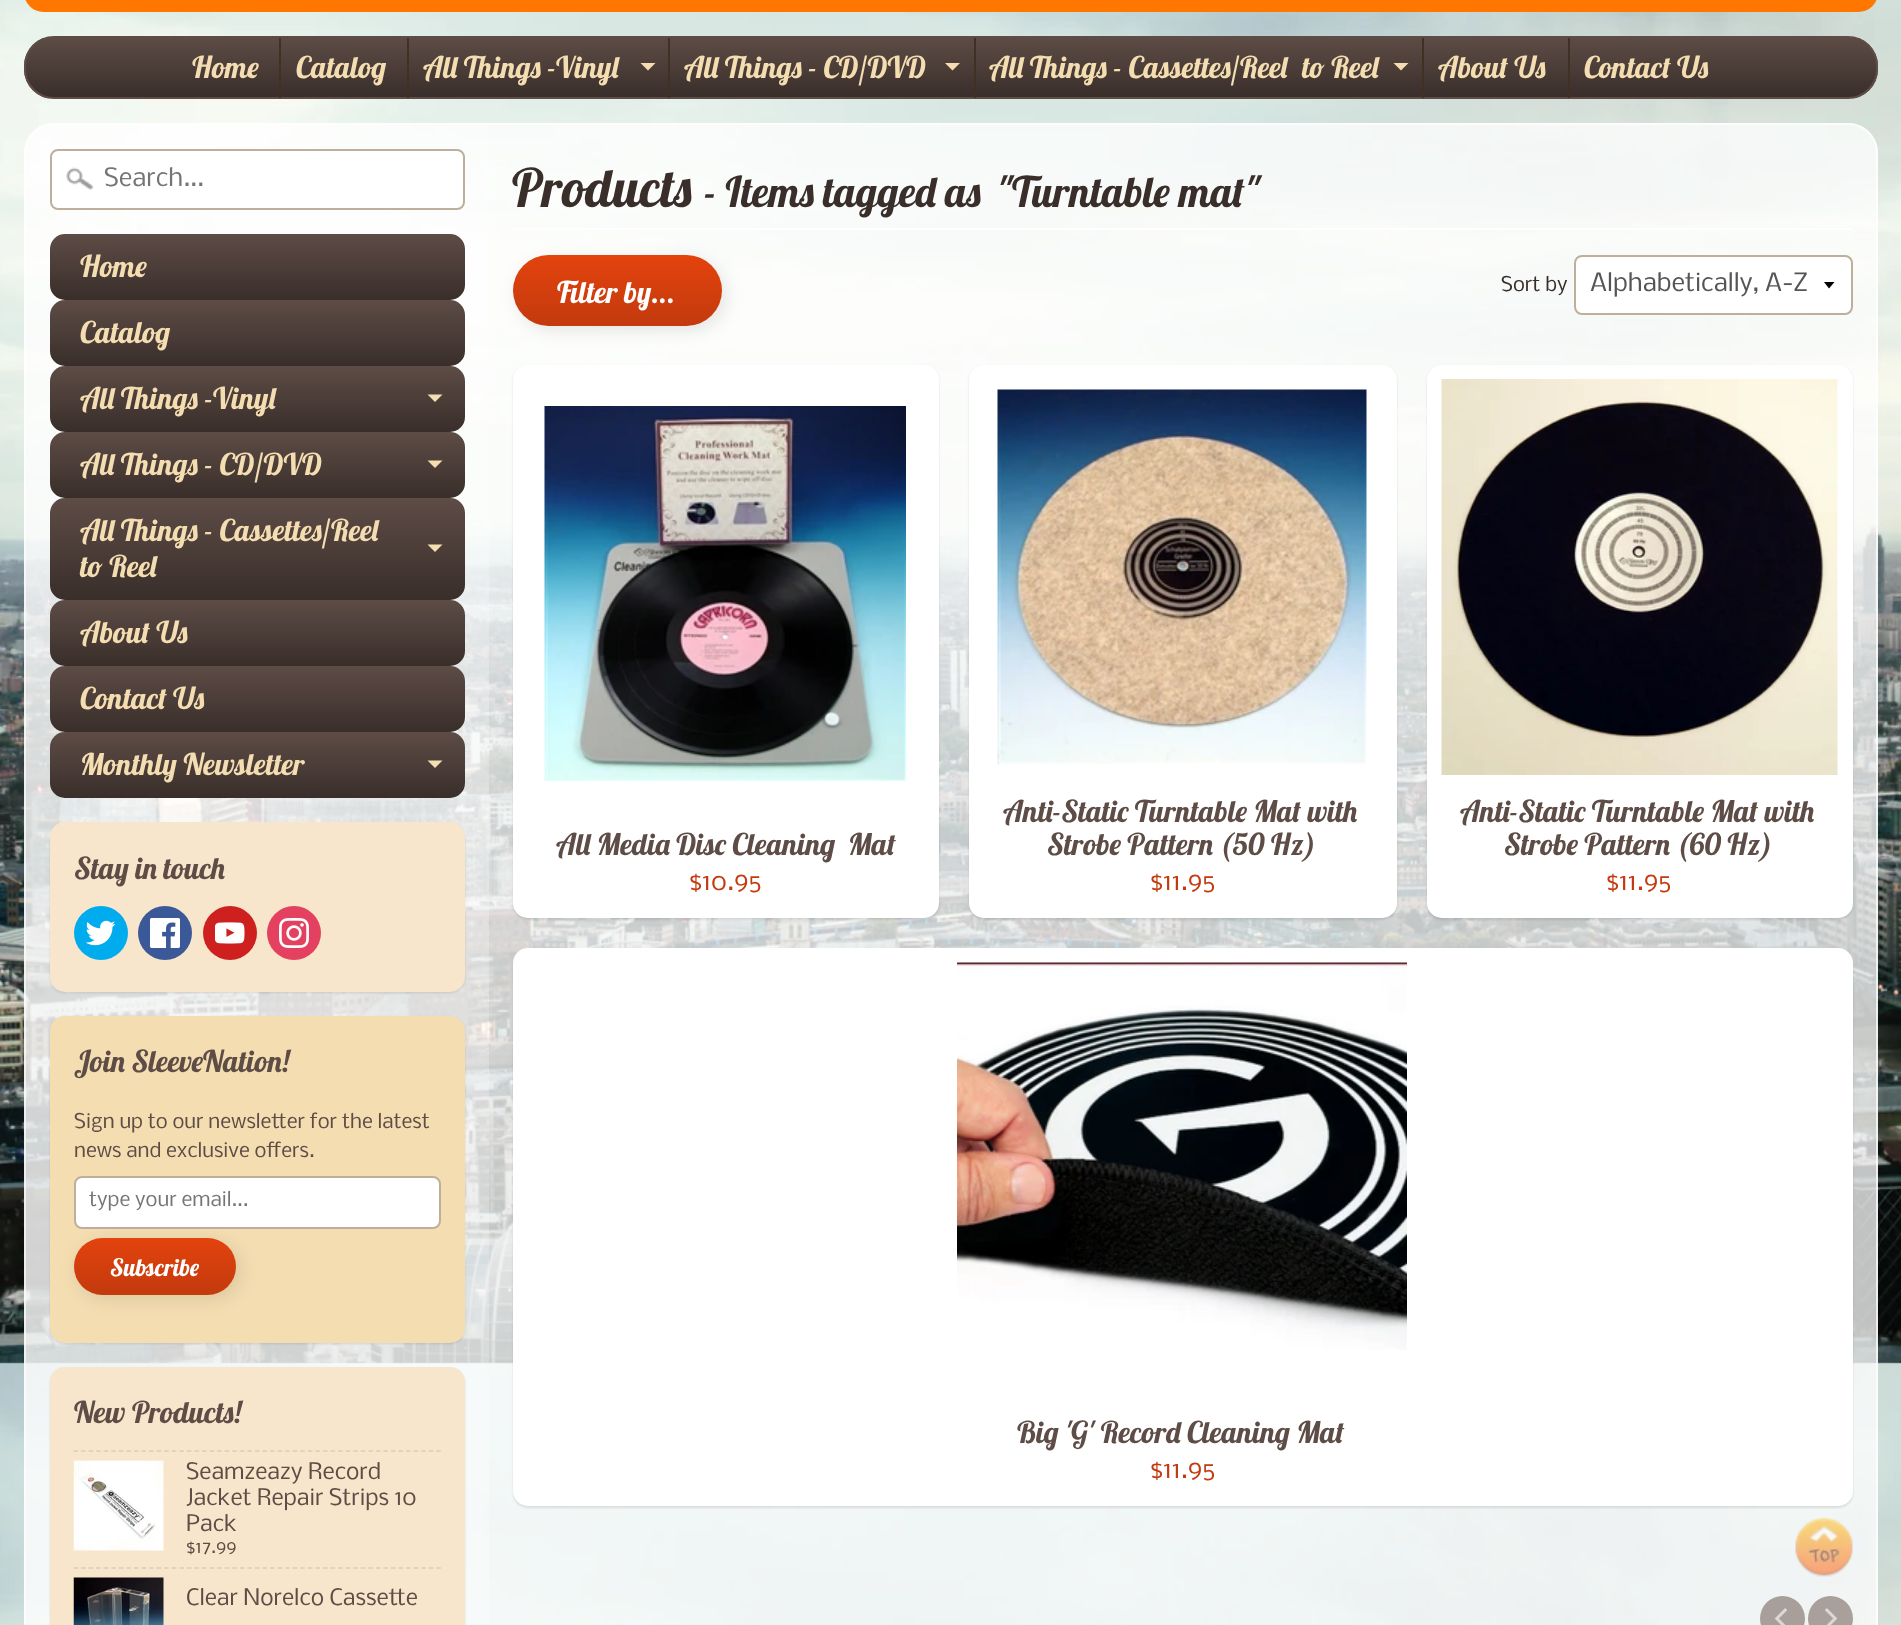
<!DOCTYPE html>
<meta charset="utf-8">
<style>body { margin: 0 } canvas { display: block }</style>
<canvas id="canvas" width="1901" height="1625"></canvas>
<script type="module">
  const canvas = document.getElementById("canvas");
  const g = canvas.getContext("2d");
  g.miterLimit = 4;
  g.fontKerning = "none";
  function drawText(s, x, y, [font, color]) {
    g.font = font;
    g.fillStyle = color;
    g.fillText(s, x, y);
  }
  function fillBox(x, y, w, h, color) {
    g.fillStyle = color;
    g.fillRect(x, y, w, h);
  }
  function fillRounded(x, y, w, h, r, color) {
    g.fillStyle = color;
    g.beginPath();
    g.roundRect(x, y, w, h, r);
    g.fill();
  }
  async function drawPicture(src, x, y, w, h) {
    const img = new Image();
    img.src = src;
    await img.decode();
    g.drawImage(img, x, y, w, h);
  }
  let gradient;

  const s1 = ["30px Lobster", "#F4DDB1"];
  const s2 = ["24px Nobile", "#757575"];
  const s3 = ["30px Lobster", "#5E4C46"];
  const s4 = ["19.25px Nobile", "#5E4C46"];
  const s5 = ["19.25px Nobile", "#757575"];
  const s6 = ["24px Lobster", "#FFFFFF"];
  const s7 = ["21.6px Nobile", "#5E4C46"];
  const s8 = ["17px Nobile", "#5E4C46"];
  const s9 = ["53px Lobster", "#392E2A"];
  const s10 = ["42.25px Lobster", "#392E2A"];
  const s11 = ["30px Lobster", "#FFFFFF"];
  const s12 = ["19.25px Nobile", "#392E2A"];
  const s13 = ["24px Nobile", "#555555"];
  const s14 = ["24px Nobile", "#C33A0E"];

  fillBox(0, 0, 1901, 1625, "#FFFFFF");
  await drawPicture("pic1.png", 0, 0, 1901, 1625);
  fillRounded(24, -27, 1854, 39, 27, "#FF7700");
  g.save();
  g.beginPath();
  g.roundRect(24, 36, 1854, 63, 30);
  g.clip();
  gradient = g.createLinearGradient(951, 37, 951, 98);
  gradient.addColorStop(0, "#5E4C46");
  gradient.addColorStop(1, "#392E2A");
  g.fillStyle = gradient;
  g.fillRect(24, 38, 1854, 60);
  g.restore();
  g.beginPath();
  g.roundRect(25, 37, 1852, 61, 29);
  g.strokeStyle = "#5E4C46";
  g.lineWidth = 2;
  g.stroke();
  drawText("Home", 192, 78, s1);
  fillBox(279, 38, 2, 60, "#413124");
  drawText("Catalog", 296, 78, s1);
  fillBox(407, 38, 2, 60, "#413124");
  drawText("All Things -Vinyl", 423, 78, s1);
  g.beginPath();
  g.moveTo(640.5, 63);
  g.lineTo(655.5, 63);
  g.lineTo(648, 70.5);
  g.closePath();
  g.fill();
  fillBox(668, 38, 2, 60, "#413124");
  drawText("All Things - CD/DVD", 684, 78, s1);
  g.beginPath();
  g.moveTo(945, 63);
  g.lineTo(960, 63);
  g.lineTo(952.5, 70.5);
  g.closePath();
  g.fill();
  fillBox(974, 38, 2, 60, "#413124");
  drawText("All Things - Cassettes/Reel", 989, 78, s1);
  drawText("to Reel", 1302, 78, s1);
  g.beginPath();
  g.moveTo(1393.5, 63);
  g.lineTo(1408.5, 63);
  g.lineTo(1401, 70.5);
  g.closePath();
  g.fill();
  fillBox(1422, 38, 2, 60, "#413124");
  drawText("About Us", 1438, 78, s1);
  fillBox(1568, 38, 2, 60, "#413124");
  drawText("Contact Us", 1584, 78, s1);
  g.beginPath();
  g.roundRect(25, 124, 1852, 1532, 29);
  g.strokeStyle = "rgba(255, 255, 255, 0.7)";
  g.stroke();
  g.fillStyle = "rgba(255, 255, 255, 0.25)";
  g.beginPath();
  g.moveTo(55, 125);
  g.lineTo(489, 125);
  g.lineTo(489, 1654);
  g.lineTo(26, 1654);
  g.lineTo(26, 154);
  g.bezierCurveTo(26, 138, 39, 125, 55, 125);
  g.closePath();
  g.fill();
  fillRounded(50, 149, 415, 61, 8, "#FFFFFF");
  await drawPicture("pic2.png", 66, 167, 27, 23);
  g.beginPath();
  g.roundRect(51, 150, 413, 59, 7);
  g.strokeStyle = "#BDAF9B";
  g.stroke();
  drawText("Search...", 104, 186, s2);
  gradient = g.createLinearGradient(257, 234, 257, 300);
  gradient.addColorStop(0, "#5E4C46");
  gradient.addColorStop(1, "#392E2A");
  g.fillStyle = gradient;
  g.beginPath();
  g.roundRect(50, 234, 415, 66, 15);
  g.fill();
  drawText("Home", 80, 277, s1);
  gradient = g.createLinearGradient(257, 300, 257, 366);
  gradient.addColorStop(0, "#5E4C46");
  gradient.addColorStop(1, "#392E2A");
  g.fillStyle = gradient;
  g.beginPath();
  g.roundRect(50, 300, 415, 66, 15);
  g.fill();
  drawText("Catalog", 80, 343, s1);
  gradient = g.createLinearGradient(257, 366, 257, 432);
  gradient.addColorStop(0, "#5E4C46");
  gradient.addColorStop(1, "#392E2A");
  g.fillStyle = gradient;
  g.beginPath();
  g.roundRect(50, 366, 415, 66, 15);
  g.fill();
  drawText("All Things -Vinyl", 80, 409, s1);
  g.beginPath();
  g.moveTo(427.5, 394.5);
  g.lineTo(442.5, 394.5);
  g.lineTo(435, 402);
  g.closePath();
  g.fill();
  gradient = g.createLinearGradient(257, 432, 257, 498);
  gradient.addColorStop(0, "#5E4C46");
  gradient.addColorStop(1, "#392E2A");
  g.fillStyle = gradient;
  g.beginPath();
  g.roundRect(50, 432, 415, 66, 15);
  g.fill();
  drawText("All Things - CD/DVD", 80, 475, s1);
  g.beginPath();
  g.moveTo(427.5, 460.5);
  g.lineTo(442.5, 460.5);
  g.lineTo(435, 468);
  g.closePath();
  g.fill();
  gradient = g.createLinearGradient(257, 498, 257, 600);
  gradient.addColorStop(0, "#5E4C46");
  gradient.addColorStop(1, "#392E2A");
  g.fillStyle = gradient;
  g.beginPath();
  g.roundRect(50, 498, 415, 102, 15);
  g.fill();
  drawText("All Things - Cassettes/Reel", 80, 541, s1);
  g.beginPath();
  g.moveTo(427.5, 544.5);
  g.lineTo(442.5, 544.5);
  g.lineTo(435, 552);
  g.closePath();
  g.fill();
  drawText("to Reel", 80, 577, s1);
  gradient = g.createLinearGradient(257, 600, 257, 666);
  gradient.addColorStop(0, "#5E4C46");
  gradient.addColorStop(1, "#392E2A");
  g.fillStyle = gradient;
  g.beginPath();
  g.roundRect(50, 600, 415, 66, 15);
  g.fill();
  drawText("About Us", 80, 643, s1);
  gradient = g.createLinearGradient(257, 666, 257, 732);
  gradient.addColorStop(0, "#5E4C46");
  gradient.addColorStop(1, "#392E2A");
  g.fillStyle = gradient;
  g.beginPath();
  g.roundRect(50, 666, 415, 66, 15);
  g.fill();
  drawText("Contact Us", 80, 709, s1);
  gradient = g.createLinearGradient(257, 732, 257, 798);
  gradient.addColorStop(0, "#5E4C46");
  gradient.addColorStop(1, "#392E2A");
  g.fillStyle = gradient;
  g.beginPath();
  g.roundRect(50, 732, 415, 66, 15);
  g.fill();
  drawText("Monthly Newsletter", 80, 775, s1);
  g.beginPath();
  g.moveTo(427.5, 760.5);
  g.lineTo(442.5, 760.5);
  g.lineTo(435, 768);
  g.closePath();
  g.fill();
  g.fillStyle = "rgba(0, 0, 0, 0.1)";
  g.filter = "blur(1px)";
  g.beginPath();
  g.roundRect(50, 824, 415, 169, 15);
  g.fill();
  g.filter = "none";
  fillRounded(50, 822, 415, 170, 15, "#F7E5CC");
  drawText("Stay in touch", 74, 879, s3);
  g.fillStyle = "#00ACED";
  g.beginPath();
  g.arc(101, 933, 27, 0, Math.PI * 2);
  g.fill();
  await drawPicture("pic3.png", 86, 920, 30, 26);
  g.fillStyle = "#3B5998";
  g.beginPath();
  g.arc(165, 933, 27, 0, Math.PI * 2);
  g.fill();
  await drawPicture("pic4.png", 150, 918, 30, 30);
  g.fillStyle = "#CD201F";
  g.beginPath();
  g.arc(230, 933, 27, 0, Math.PI * 2);
  g.fill();
  await drawPicture("pic5.png", 215, 922, 30, 22);
  g.fillStyle = "#E4405F";
  g.beginPath();
  g.arc(294, 933, 27, 0, Math.PI * 2);
  g.fill();
  await drawPicture("pic6.png", 279, 918, 30, 30);
  g.fillStyle = "rgba(0, 0, 0, 0.1)";
  g.filter = "blur(1px)";
  g.beginPath();
  g.roundRect(50, 1017, 415, 327, 15);
  g.fill();
  g.filter = "none";
  fillRounded(50, 1016, 415, 327, 15, "#F4DDB1");
  drawText("Join SleeveNation!", 74, 1072, s3);
  drawText("Sign up to our newsletter for the latest", 74, 1128, s4);
  drawText("news and exclusive offers.", 74, 1157, s4);
  g.fillStyle = "#FFFFFF";
  g.beginPath();
  g.roundRect(75, 1177, 365, 51, 7);
  g.fill();
  g.stroke();
  drawText("type your email...", 89, 1206, s5);
  g.fillStyle = "rgba(0, 0, 0, 0.1)";
  g.filter = "blur(9px)";
  g.beginPath();
  g.roundRect(78, 1242, 162, 57, 28.5);
  g.fill();
  g.filter = "none";
  gradient = g.createLinearGradient(155, 1238, 155, 1295);
  gradient.addColorStop(0, "#E3430D");
  gradient.addColorStop(1, "#C33A0E");
  g.fillStyle = gradient;
  g.beginPath();
  g.roundRect(74, 1238, 162, 57, 28.5);
  g.fill();
  drawText("Subscribe", 110, 1276, s6);
  g.fillStyle = "rgba(0, 0, 0, 0.1)";
  g.filter = "blur(1px)";
  g.beginPath();
  g.roundRect(50, 1368, 415, 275, 15);
  g.fill();
  g.filter = "none";
  fillRounded(50, 1367, 415, 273, 15, "#F7E5CC");
  drawText("New Products!", 74, 1423, s3);
  g.beginPath();
  g.moveTo(73.5, 1451);
  g.lineTo(441, 1451);
  g.strokeStyle = "#DECCB2";
  g.lineWidth = 1.5;
  g.setLineDash([4.5, 3.06]);
  g.stroke();
  await drawPicture("pic7.png", 73, 1460, 91, 91);
  drawText("Seamzeazy Record", 186, 1479, s7);
  drawText("Jacket Repair Strips 10", 186, 1505, s7);
  drawText("Pack", 186, 1531, s7);
  drawText("$17.99", 186, 1553, s8);
  g.beginPath();
  g.moveTo(73.5, 1568);
  g.lineTo(441, 1568);
  g.stroke();
  await drawPicture("pic8.png", 73, 1577, 91, 48);
  drawText("Clear Norelco Cassette", 186, 1605, s7);
  fillBox(513, 228, 1340, 2, "#FFFFFF");
  drawText("Products", 512, 207, s9);
  drawText("- Items tagged as", 704, 207, s10);
  drawText("\"Turntable mat\"", 997, 207, s10);
  g.fillStyle = "rgba(0, 0, 0, 0.1)";
  g.filter = "blur(9px)";
  g.beginPath();
  g.roundRect(518, 260, 208, 70, 35);
  g.fill();
  g.filter = "none";
  gradient = g.createLinearGradient(617, 255, 617, 326);
  gradient.addColorStop(0, "#E3430D");
  gradient.addColorStop(1, "#C33A0E");
  g.fillStyle = gradient;
  g.beginPath();
  g.roundRect(513, 255, 209, 71, 35.5);
  g.fill();
  drawText("Filter by...", 557, 303, s11);
  drawText("Sort by", 1501, 291, s12);
  fillRounded(1574, 255, 279, 60, 8, "#FFFFFF");
  g.fillStyle = "#000000";
  g.beginPath();
  g.moveTo(1824, 282);
  g.lineTo(1829, 288.5);
  g.lineTo(1834.5, 282);
  g.closePath();
  g.fill();
  g.beginPath();
  g.roundRect(1575, 256, 277, 58, 7);
  g.strokeStyle = "#BDAF9B";
  g.lineWidth = 2;
  g.setLineDash([]);
  g.stroke();
  drawText("Alphabetically, A-Z", 1590, 291, s13);
  g.fillStyle = "rgba(0, 0, 0, 0.1)";
  g.filter = "blur(1px)";
  g.beginPath();
  g.roundRect(513, 366, 426, 554, 15);
  g.fill();
  g.filter = "none";
  fillRounded(513, 365, 426, 553, 15, "#FFFFFF");
  await drawPicture("pic9.png", 544, 406, 362, 375);
  drawText("All Media Disc Cleaning", 556, 855, s3);
  drawText("Mat", 848, 855, s3);
  drawText("$10.95", 689, 890, s14);
  g.fillStyle = "rgba(0, 0, 0, 0.1)";
  g.filter = "blur(1px)";
  g.beginPath();
  g.roundRect(969, 366, 428, 554, 15);
  g.fill();
  g.filter = "none";
  fillRounded(969, 365, 428, 553, 15, "#FFFFFF");
  await drawPicture("pic10.png", 997, 389, 370, 376);
  drawText("Anti-Static Turntable Mat with", 1003, 822, s3);
  drawText("Strobe Pattern (50 Hz)", 1047, 855, s3);
  drawText("$11.95", 1150, 890, s14);
  g.fillStyle = "rgba(0, 0, 0, 0.1)";
  g.filter = "blur(1px)";
  g.beginPath();
  g.roundRect(1427, 366, 426, 554, 15);
  g.fill();
  g.filter = "none";
  fillRounded(1427, 365, 426, 553, 15, "#FFFFFF");
  await drawPicture("pic11.png", 1441, 379, 397, 396);
  drawText("Anti-Static Turntable Mat with", 1460, 822, s3);
  drawText("Strobe Pattern (60 Hz)", 1504, 855, s3);
  drawText("$11.95", 1606, 890, s14);
  g.fillStyle = "rgba(0, 0, 0, 0.1)";
  g.filter = "blur(1px)";
  g.beginPath();
  g.roundRect(513, 950, 1340, 558, 15);
  g.fill();
  g.filter = "none";
  fillRounded(513, 948, 1340, 558, 15, "#FFFFFF");
  await drawPicture("pic12.png", 957, 962, 450, 388);
  drawText("Big 'G' Record Cleaning Mat", 1017, 1443, s3);
  drawText("$11.95", 1150, 1478, s14);
  g.fillStyle = "#A89F9B";
  g.beginPath();
  g.arc(1782.5, 1618.5, 22.5, 0, Math.PI * 2);
  g.fill();
  await drawPicture("pic13.png", 1774, 1608, 13, 17);
  g.fillStyle = "#A99F9B";
  g.beginPath();
  g.arc(1830.5, 1618.5, 22.5, 0, Math.PI * 2);
  g.fill();
  await drawPicture("pic14.png", 1825, 1608, 13, 17);
  await drawPicture("pic15.png", 1795, 1518, 58, 59);
</script>
